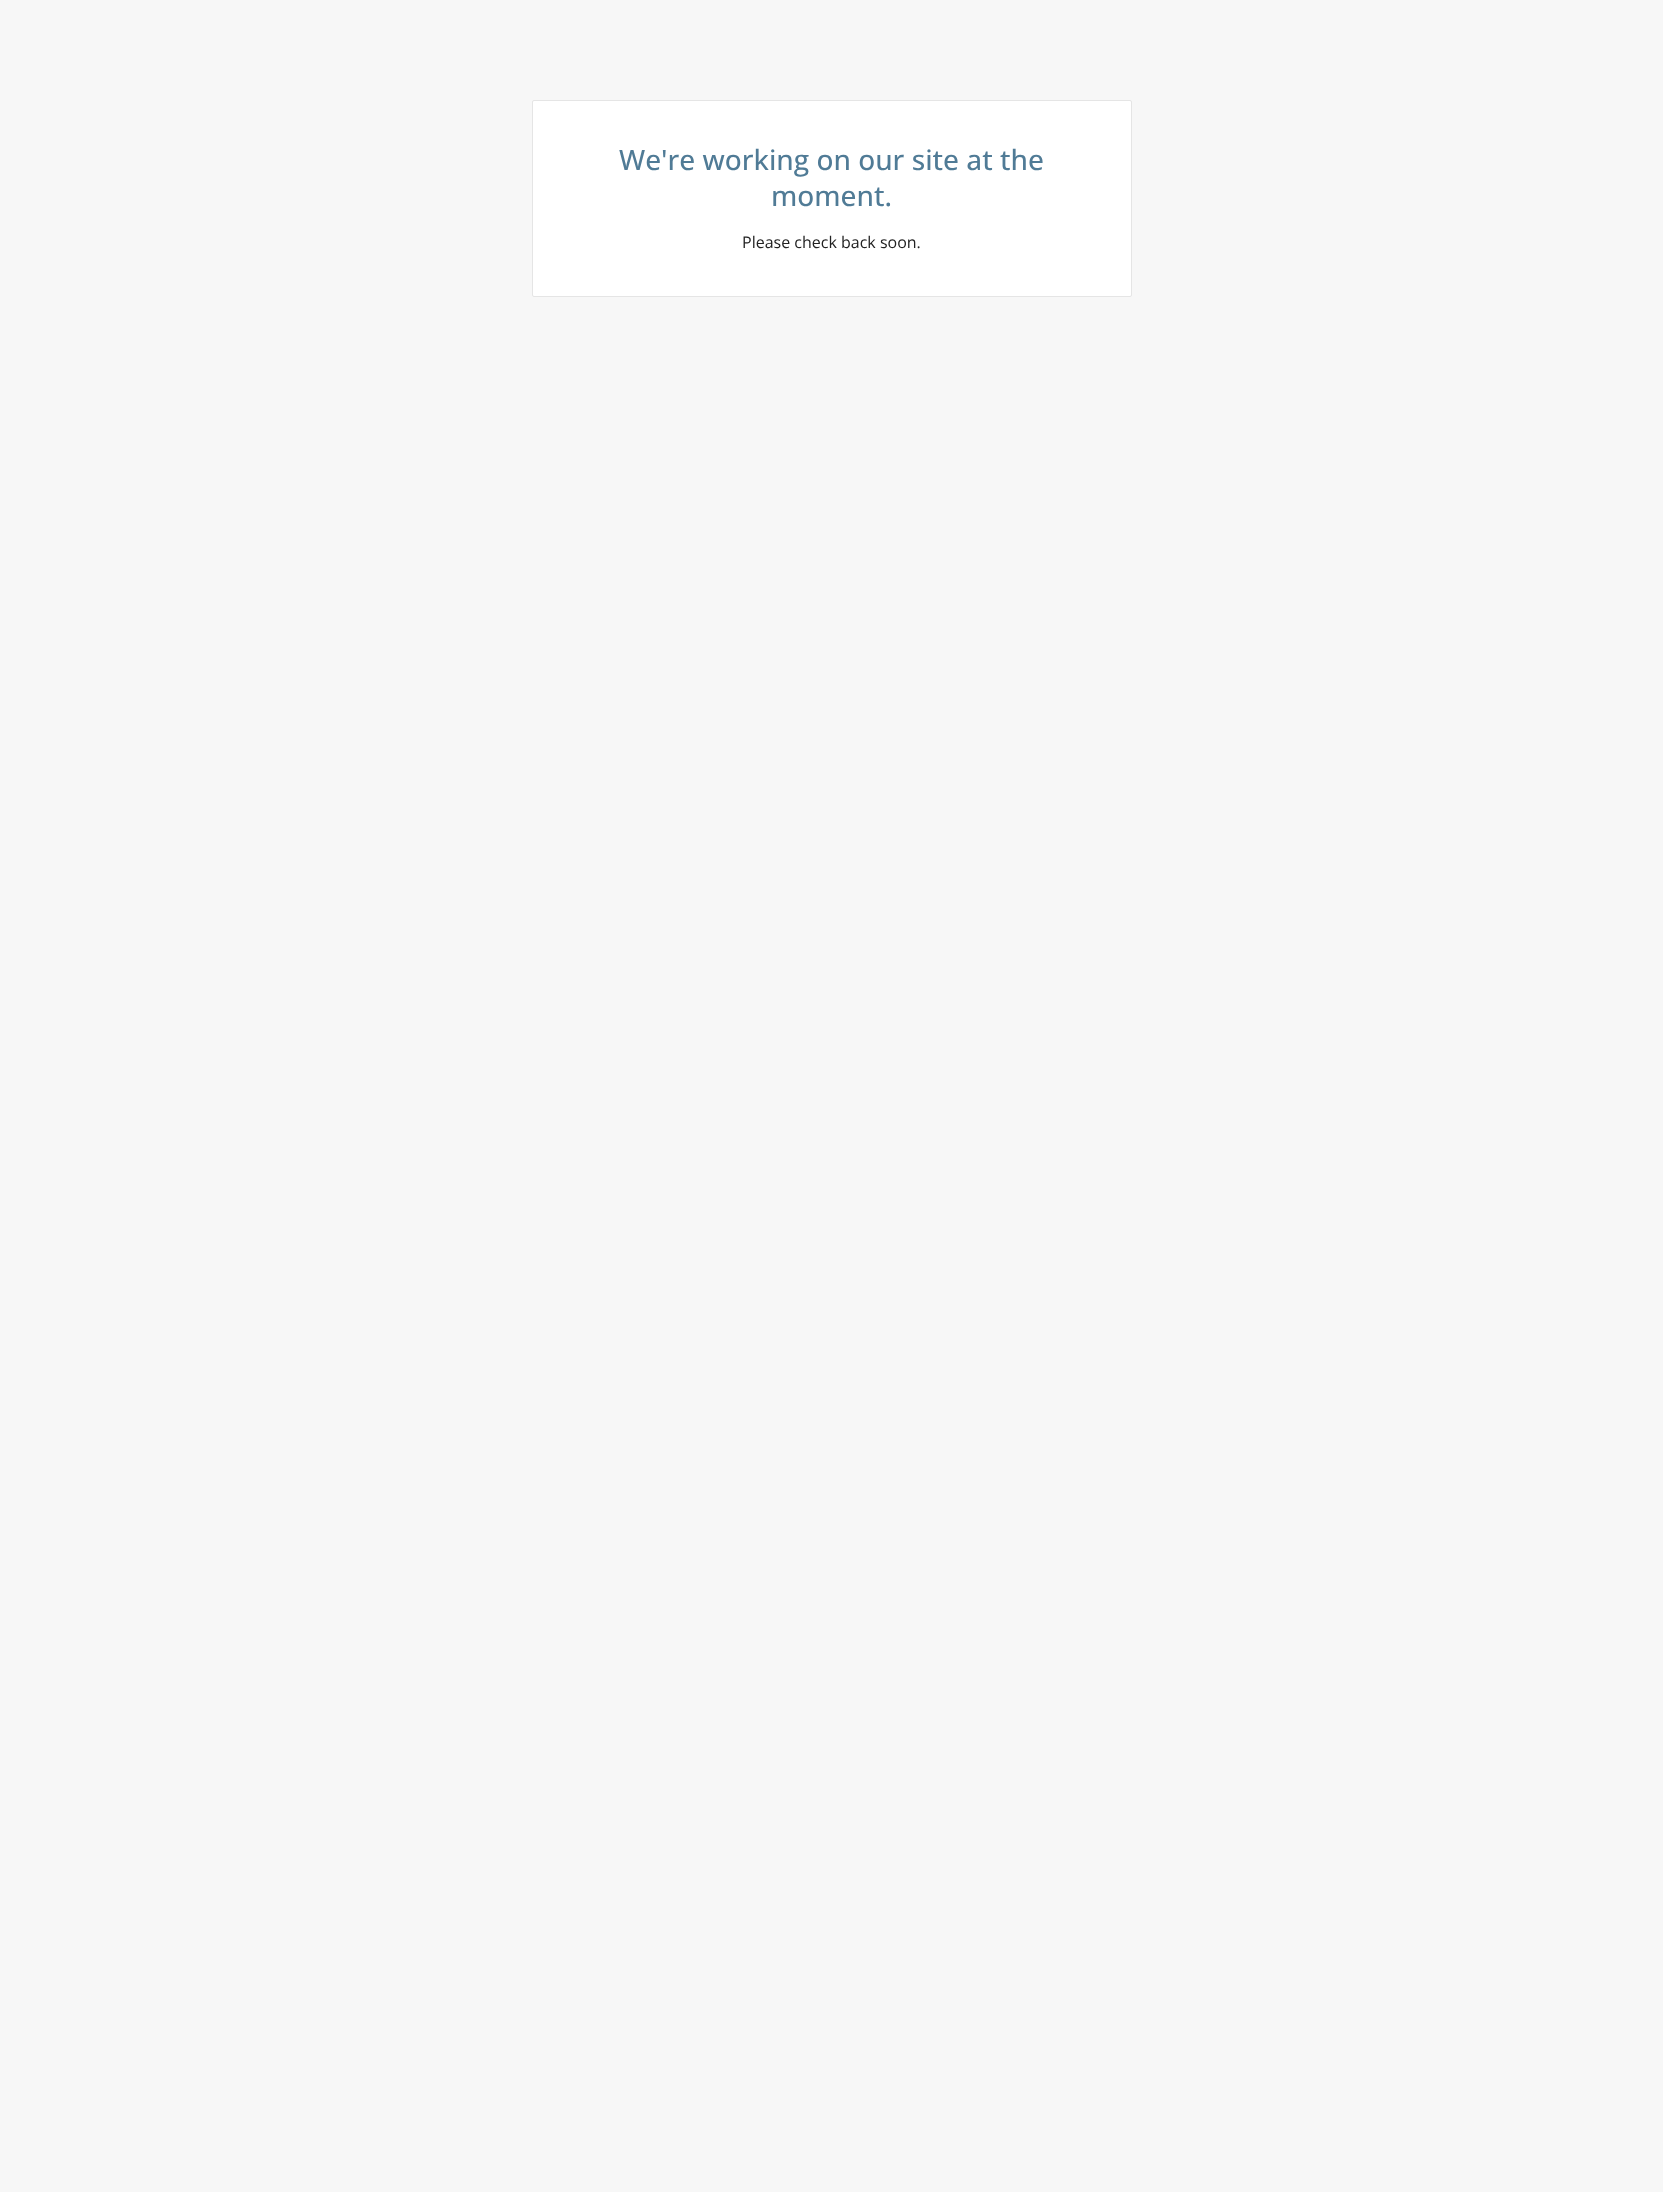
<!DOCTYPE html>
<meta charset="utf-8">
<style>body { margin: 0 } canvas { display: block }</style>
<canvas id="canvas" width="1663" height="2192"></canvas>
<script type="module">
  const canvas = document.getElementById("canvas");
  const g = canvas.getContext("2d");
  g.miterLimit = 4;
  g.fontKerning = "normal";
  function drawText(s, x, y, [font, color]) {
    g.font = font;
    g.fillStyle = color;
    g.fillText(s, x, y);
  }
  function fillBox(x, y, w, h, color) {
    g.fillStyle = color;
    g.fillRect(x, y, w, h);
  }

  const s1 = ["500 28px Open Sans", "#507B96"];
  const s2 = ["16px Open Sans", "#222222"];

  fillBox(0, 0, 1663, 2192, "#F7F7F7");
  g.fillStyle = "#FFFFFF";
  g.beginPath();
  g.roundRect(532.5, 100.5, 599, 196, 1.5);
  g.fill();
  g.strokeStyle = "#E5E5E5";
  g.stroke();
  drawText("We're working on our site at the", 619, 170, s1);
  drawText("moment.", 771, 206, s1);
  drawText("Please check back soon.", 742, 248, s2);
</script>
